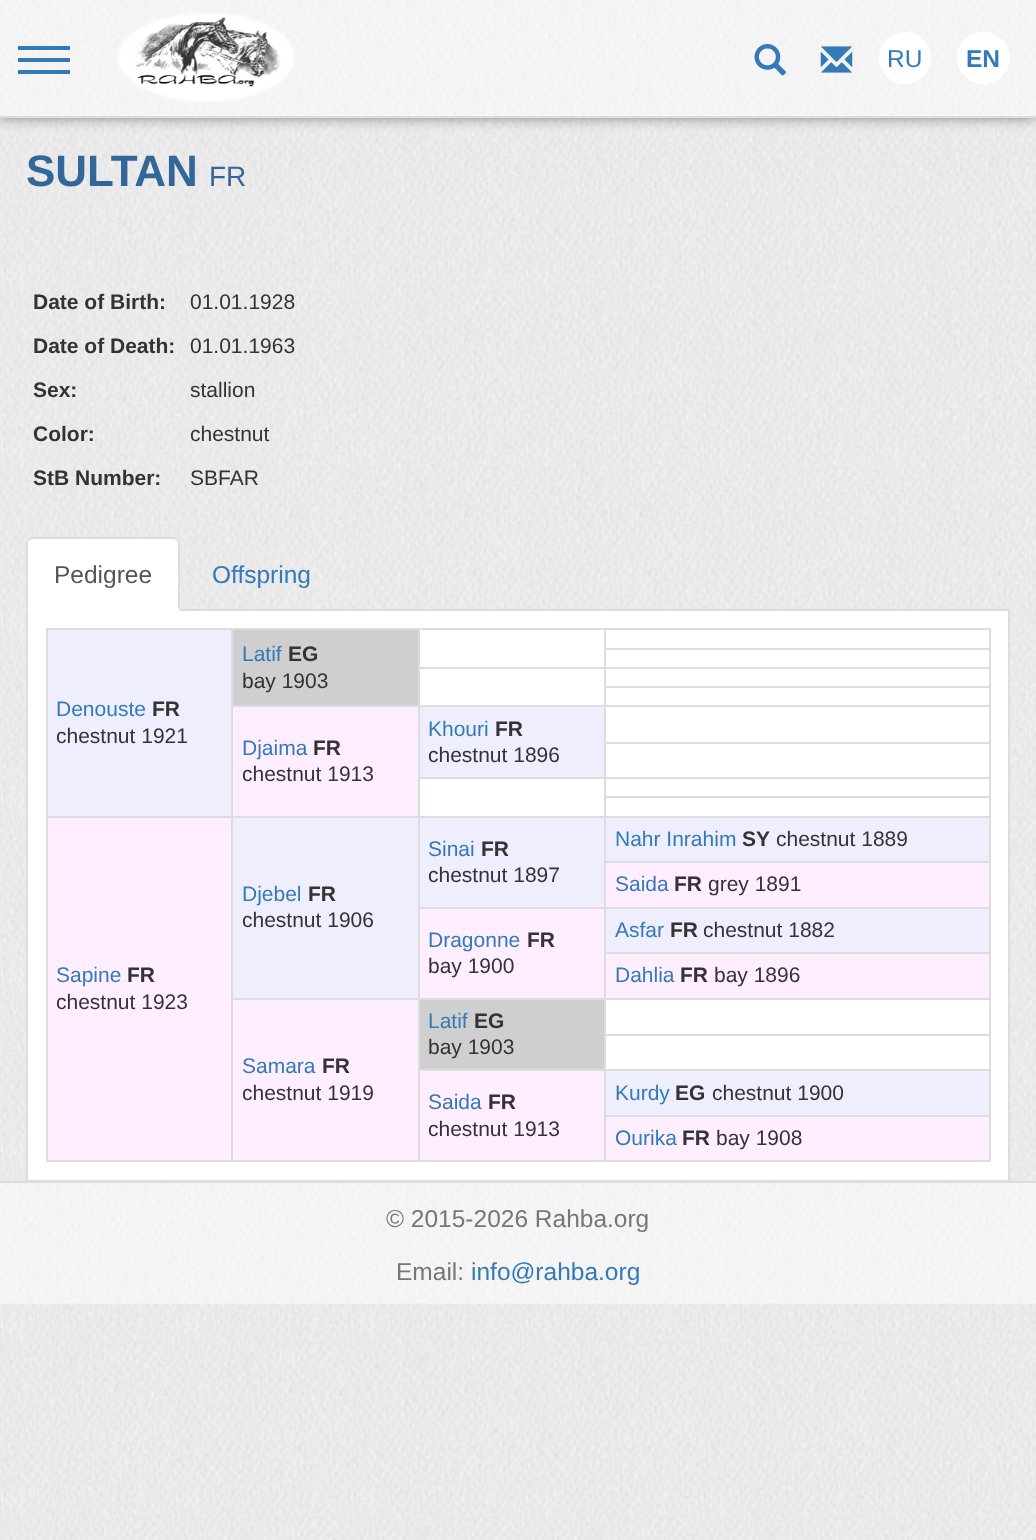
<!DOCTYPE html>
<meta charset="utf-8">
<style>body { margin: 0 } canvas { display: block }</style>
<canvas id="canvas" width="1036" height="1540"></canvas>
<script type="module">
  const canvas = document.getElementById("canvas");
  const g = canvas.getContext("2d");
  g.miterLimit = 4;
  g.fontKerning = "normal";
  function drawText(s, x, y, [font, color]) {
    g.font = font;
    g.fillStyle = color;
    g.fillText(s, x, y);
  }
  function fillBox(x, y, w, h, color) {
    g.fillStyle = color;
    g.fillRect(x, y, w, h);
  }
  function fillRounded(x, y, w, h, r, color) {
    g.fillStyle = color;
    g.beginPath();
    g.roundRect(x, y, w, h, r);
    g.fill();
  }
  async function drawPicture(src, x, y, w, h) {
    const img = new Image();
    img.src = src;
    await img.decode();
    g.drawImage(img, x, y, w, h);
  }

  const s1 = ["24.5px Liberation Sans", "#337AB7"];
  const s2 = ["bold 24.5px Liberation Sans", "#337AB7"];
  const s3 = ["bold 44px Liberation Sans", "#336699"];
  const s4 = ["28px Liberation Sans", "#336699"];
  const s5 = ["bold 21px Liberation Sans", "#333333"];
  const s6 = ["21px Liberation Sans", "#333333"];
  const s7 = ["24.5px Liberation Sans", "#555555"];
  const s8 = ["21px Liberation Sans", "#337AB7"];
  const s9 = ["24.5px Liberation Sans", "#777777"];

  fillBox(0, 0, 1036, 1540, "#FFFFFF");
  await drawPicture("pic1.png", 0, 118, 1036, 1422);
  g.fillStyle = "rgba(0, 0, 0, 0.5)";
  g.filter = "blur(7px)";
  g.beginPath();
  g.rect(0, 0, 1036, 117);
  g.fill();
  g.filter = "none";
  await drawPicture("pic2.png", 0, 0, 1036, 116);
  fillBox(0, 116, 1036, 2, "#DCDCDC");
  fillBox(18, 58, 52, 4, "#337AB7");
  fillBox(18, 46, 52, 4, "#337AB7");
  fillBox(18, 70, 52, 4, "#337AB7");
  await drawPicture("pic3.png", 118, 12, 177, 90);
  await drawPicture("pic4.png", 754, 44, 32, 32);
  await drawPicture("pic5.png", 820, 46, 33, 27);
  g.fillStyle = "#FFFFFF";
  g.beginPath();
  g.arc(905, 58, 26, 0, Math.PI * 2);
  g.fill();
  drawText("RU", 887, 67, s1);
  fillRounded(957, 32, 53, 52, 26, "#FFFFFF");
  drawText("EN", 966, 67, s2);
  drawText("SULTAN", 26, 186, s3);
  drawText("FR", 209, 186, s4);
  drawText("Date of Birth:", 33, 309, s5);
  drawText("01.01.1928", 190, 309, s6);
  drawText("Date of Death:", 33, 353, s5);
  drawText("01.01.1963", 190, 353, s6);
  drawText("Sex:", 33, 397, s5);
  drawText("stallion", 190, 397, s6);
  drawText("Color:", 33, 441, s5);
  drawText("chestnut", 190, 441, s6);
  drawText("StB Number:", 33, 485, s5);
  drawText("SBFAR", 190, 485, s6);
  fillBox(180, 609, 830, 2, "#DDDDDD");
  g.fillStyle = "#FFFFFF";
  g.beginPath();
  g.roundRect(26, 537, 154, 74, [7, 7, 0, 0]);
  g.fill();
  g.fillStyle = "#DDDDDD";
  g.beginPath();
  g.moveTo(33, 539);
  g.bezierCurveTo(32, 539, 30, 540, 29, 540);
  g.lineTo(28, 539);
  g.lineTo(31, 537);
  g.lineTo(175, 537);
  g.lineTo(178, 539);
  g.lineTo(177, 541);
  g.bezierCurveTo(176, 540, 175, 539, 173, 539);
  g.closePath();
  g.fill();
  g.beginPath();
  g.moveTo(178, 539);
  g.bezierCurveTo(179, 540, 180, 542, 180, 544);
  g.lineTo(180, 610);
  g.lineTo(178, 608);
  g.lineTo(178, 544);
  g.bezierCurveTo(178, 543, 178, 541, 177, 541);
  g.closePath();
  g.fill();
  g.beginPath();
  g.moveTo(26, 611);
  g.lineTo(26, 542);
  g.lineTo(28, 539);
  g.lineTo(29, 540);
  g.bezierCurveTo(28, 541, 28, 542, 28, 544);
  g.lineTo(28, 609);
  g.closePath();
  g.fill();
  drawText("Pedigree", 54, 583, s7);
  drawText("Offspring", 212, 583, s1);
  fillBox(28, 611, 980, 569, "#FFFFFF");
  fillBox(1008, 611, 2, 570, "#DDDDDD");
  fillBox(26, 1180, 984, 1, "#DDDDDD");
  fillBox(26, 611, 2, 570, "#DDDDDD");
  fillBox(46, 628, 945, 2, "#DDDDDD");
  fillBox(989, 628, 2, 534, "#DDDDDD");
  fillBox(46, 1160, 945, 2, "#DDDDDD");
  fillBox(46, 628, 2, 534, "#DDDDDD");
  fillBox(604, 667, 387, 2, "#DDDDDD");
  fillBox(604, 686, 387, 2, "#DDDDDD");
  fillBox(604, 705, 387, 2, "#DDDDDD");
  fillBox(604, 742, 387, 2, "#DDDDDD");
  fillBox(604, 777, 387, 2, "#DDDDDD");
  fillBox(604, 796, 387, 2, "#DDDDDD");
  fillBox(604, 816, 387, 2, "#DDDDDD");
  fillBox(604, 861, 387, 2, "#DDDDDD");
  fillBox(604, 907, 387, 2, "#DDDDDD");
  fillBox(604, 952, 387, 2, "#DDDDDD");
  fillBox(604, 998, 387, 2, "#DDDDDD");
  fillBox(604, 1034, 387, 2, "#DDDDDD");
  fillBox(604, 1069, 387, 2, "#DDDDDD");
  fillBox(604, 1115, 387, 2, "#DDDDDD");
  fillBox(604, 1115, 2, 47, "#DDDDDD");
  fillBox(604, 1069, 2, 48, "#DDDDDD");
  fillBox(418, 1069, 188, 2, "#DDDDDD");
  fillBox(604, 1034, 2, 37, "#DDDDDD");
  fillBox(604, 998, 2, 38, "#DDDDDD");
  fillBox(418, 998, 188, 2, "#DDDDDD");
  fillBox(604, 952, 2, 47, "#DDDDDD");
  fillBox(604, 907, 2, 47, "#DDDDDD");
  fillBox(418, 907, 188, 2, "#DDDDDD");
  fillBox(604, 861, 2, 47, "#DDDDDD");
  fillBox(604, 816, 2, 47, "#DDDDDD");
  fillBox(418, 816, 188, 2, "#DDDDDD");
  fillBox(604, 796, 2, 21, "#DDDDDD");
  fillBox(604, 777, 2, 21, "#DDDDDD");
  fillBox(418, 777, 188, 2, "#DDDDDD");
  fillBox(604, 742, 2, 37, "#DDDDDD");
  fillBox(604, 705, 2, 39, "#DDDDDD");
  fillBox(418, 705, 188, 2, "#DDDDDD");
  fillBox(604, 686, 2, 21, "#DDDDDD");
  fillBox(604, 667, 2, 21, "#DDDDDD");
  fillBox(418, 667, 188, 2, "#DDDDDD");
  fillBox(418, 1069, 2, 93, "#DDDDDD");
  fillBox(418, 998, 2, 73, "#DDDDDD");
  fillBox(231, 998, 189, 2, "#DDDDDD");
  fillBox(418, 907, 2, 92, "#DDDDDD");
  fillBox(418, 816, 2, 92, "#DDDDDD");
  fillBox(231, 816, 189, 2, "#DDDDDD");
  fillBox(418, 777, 2, 40, "#DDDDDD");
  fillBox(418, 705, 2, 74, "#DDDDDD");
  fillBox(231, 705, 189, 2, "#DDDDDD");
  fillBox(418, 628, 2, 79, "#DDDDDD");
  fillBox(233, 630, 185, 75, "#CFCFCF");
  drawText("Latif", 242, 661, s8);
  drawText("EG", 288, 661, s5);
  drawText("bay 1903", 242, 688, s6);
  fillBox(48, 630, 183, 186, "#EEEEFF");
  drawText("Denouste", 56, 716, s8);
  drawText("FR", 152, 716, s5);
  drawText("chestnut 1921", 56, 743, s6);
  fillBox(604, 648, 387, 2, "#DDDDDD");
  fillBox(604, 628, 2, 41, "#DDDDDD");
  fillBox(233, 707, 185, 109, "#FFEEFF");
  fillBox(231, 998, 2, 164, "#DDDDDD");
  fillBox(231, 816, 2, 183, "#DDDDDD");
  fillBox(46, 816, 187, 2, "#DDDDDD");
  fillBox(231, 628, 2, 189, "#DDDDDD");
  drawText("Djaima", 242, 755, s8);
  drawText("FR", 313, 755, s5);
  drawText("chestnut 1913", 242, 781, s6);
  fillBox(420, 707, 184, 70, "#EEEEFF");
  drawText("Khouri", 428, 736, s8);
  drawText("FR", 495, 736, s5);
  drawText("chestnut 1896", 428, 762, s6);
  fillBox(420, 818, 184, 89, "#EEEEFF");
  drawText("Sinai", 428, 856, s8);
  drawText("FR", 481, 856, s5);
  drawText("chestnut 1897", 428, 882, s6);
  fillBox(606, 818, 383, 43, "#EEEEFF");
  drawText("Nahr Inrahim", 615, 846, s8);
  drawText("SY", 742, 846, s5);
  drawText("chestnut 1889", 776, 846, s6);
  fillBox(233, 818, 185, 180, "#EEEEFF");
  drawText("Djebel", 242, 901, s8);
  drawText("FR", 308, 901, s5);
  drawText("chestnut 1906", 242, 927, s6);
  fillBox(48, 818, 183, 342, "#FFEEFF");
  drawText("Sapine", 56, 982, s8);
  drawText("FR", 127, 982, s5);
  drawText("chestnut 1923", 56, 1009, s6);
  fillBox(606, 863, 383, 44, "#FFEEFF");
  drawText("Saida", 615, 891, s8);
  drawText("FR", 674, 891, s5);
  drawText("grey 1891", 708, 891, s6);
  fillBox(606, 909, 383, 43, "#EEEEFF");
  drawText("Asfar", 615, 937, s8);
  drawText("FR", 670, 937, s5);
  drawText("chestnut 1882", 703, 937, s6);
  fillBox(420, 909, 184, 89, "#FFEEFF");
  drawText("Dragonne", 428, 947, s8);
  drawText("FR", 527, 947, s5);
  drawText("bay 1900", 428, 973, s6);
  fillBox(606, 954, 383, 44, "#FFEEFF");
  drawText("Dahlia", 615, 982, s8);
  drawText("FR", 680, 982, s5);
  drawText("bay 1896", 714, 982, s6);
  fillBox(420, 1000, 184, 69, "#CFCFCF");
  drawText("Latif", 428, 1028, s8);
  drawText("EG", 474, 1028, s5);
  drawText("bay 1903", 428, 1054, s6);
  fillBox(233, 1000, 185, 160, "#FFEEFF");
  drawText("Samara", 242, 1073, s8);
  drawText("FR", 322, 1073, s5);
  drawText("chestnut 1919", 242, 1100, s6);
  fillBox(420, 1071, 184, 89, "#FFEEFF");
  drawText("Saida", 428, 1109, s8);
  drawText("FR", 488, 1109, s5);
  drawText("chestnut 1913", 428, 1136, s6);
  fillBox(606, 1071, 383, 44, "#EEEEFF");
  drawText("Kurdy", 615, 1100, s8);
  drawText("EG", 675, 1100, s5);
  drawText("chestnut 1900", 712, 1100, s6);
  fillBox(606, 1117, 383, 43, "#FFEEFF");
  drawText("Ourika", 615, 1145, s8);
  drawText("FR", 682, 1145, s5);
  drawText("bay 1908", 716, 1145, s6);
  await drawPicture("pic6.png", 0, 1183, 1036, 121);
  fillBox(0, 1181, 1036, 2, "#DCDCDC");
  drawText("© 2015-2026 Rahba.org", 386, 1227, s9);
  drawText("Email:", 396, 1280, s9);
  drawText("info@rahba.org", 471, 1280, s1);
</script>
